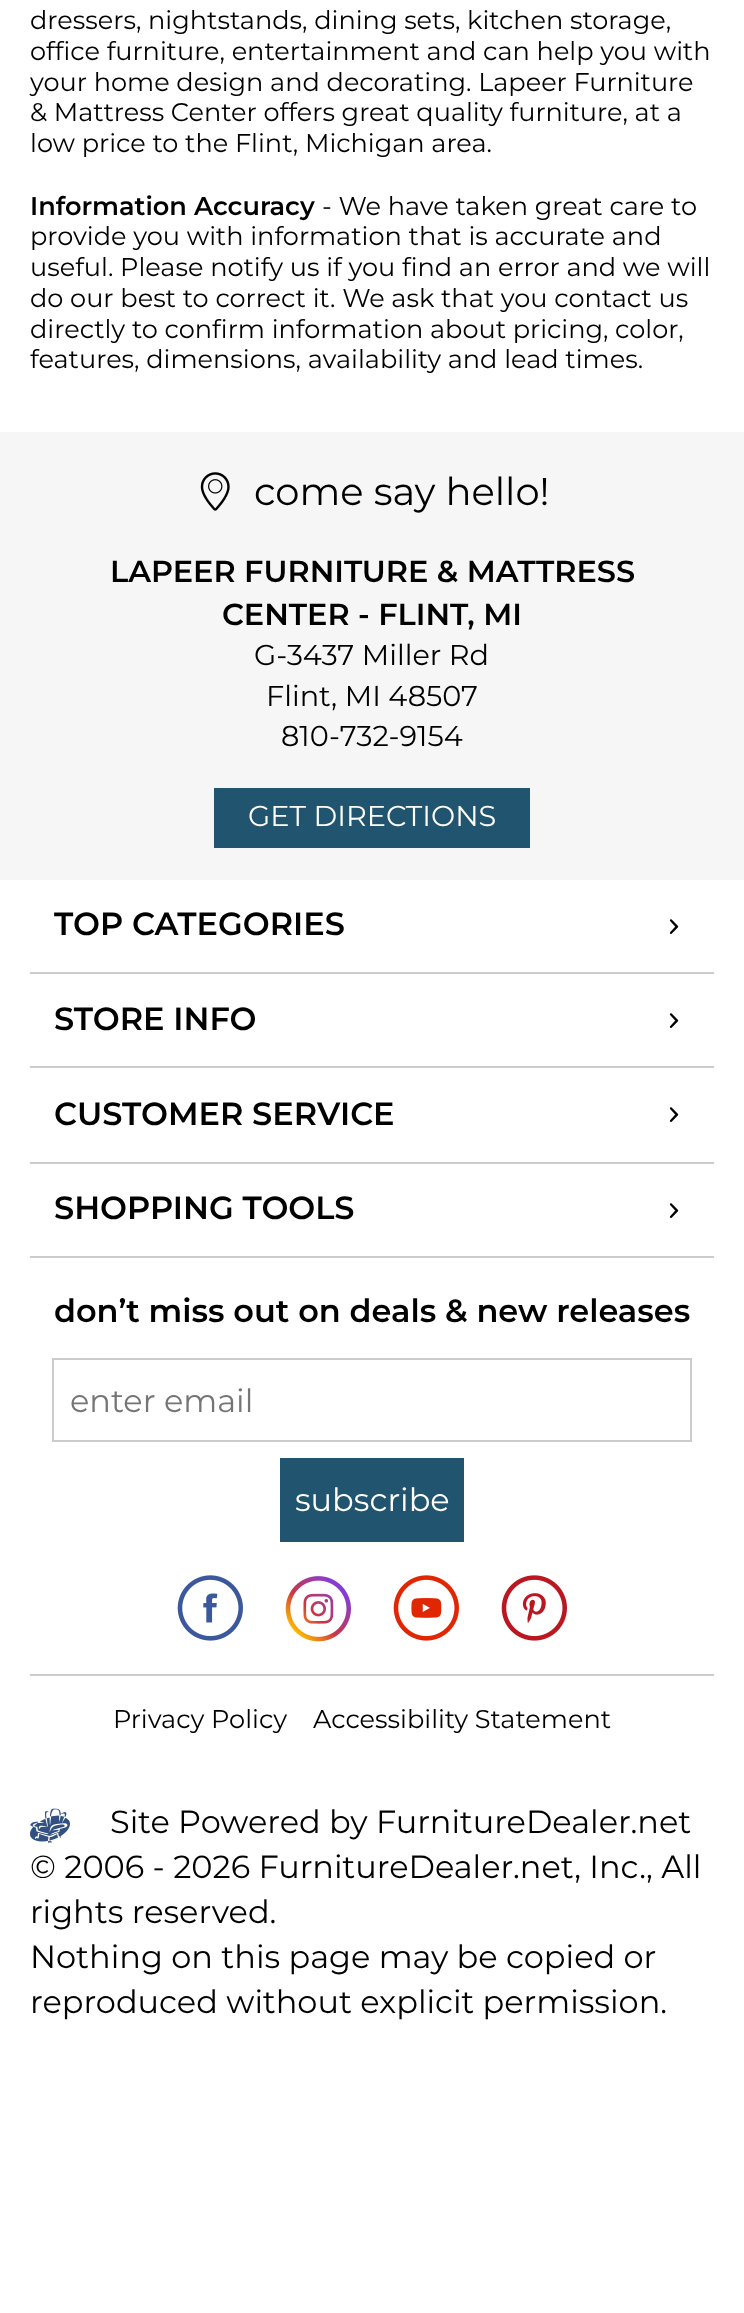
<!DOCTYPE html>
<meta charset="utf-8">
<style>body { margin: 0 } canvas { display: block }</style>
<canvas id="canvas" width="744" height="2313"></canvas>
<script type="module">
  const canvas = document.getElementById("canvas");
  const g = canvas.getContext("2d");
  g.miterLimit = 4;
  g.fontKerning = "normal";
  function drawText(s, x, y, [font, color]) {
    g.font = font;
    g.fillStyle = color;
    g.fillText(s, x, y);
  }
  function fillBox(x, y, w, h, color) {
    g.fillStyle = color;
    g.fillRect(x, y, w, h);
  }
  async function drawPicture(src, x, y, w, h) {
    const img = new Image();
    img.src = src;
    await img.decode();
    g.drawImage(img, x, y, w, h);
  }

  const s1 = ["25.6px Montserrat", "#000000"];
  const s2 = ["600 25.6px Montserrat", "#000000"];
  const s3 = ["38.5px Montserrat", "#000000"];
  const s4 = ["600 30.4px Montserrat", "#000000"];
  const s5 = ["28.75px Montserrat", "#000000"];
  const s6 = ["28.75px Montserrat", "#FFFFFF"];
  const s7 = ["600 32px Montserrat", "#000000"];
  const s8 = ["32px Montserrat", "#757575"];
  const s9 = ["32px Montserrat", "#FFFFFF"];
  const s10 = ["32px Montserrat", "#000000"];

  fillBox(0, 0, 744, 2313, "#FFFFFF");
  drawText("dressers, nightstands, dining sets, kitchen storage,", 30, 29, s1);
  drawText("office furniture, entertainment and can help you with", 30, 60, s1);
  drawText("your home design and decorating. Lapeer Furniture", 30, 91, s1);
  drawText("& Mattress Center offers great quality furniture, at a", 30, 121, s1);
  drawText("low price to the Flint, Michigan area.", 30, 152, s1);
  drawText("Information Accuracy", 30, 215, s2);
  drawText("- We have taken great care to", 322, 215, s1);
  drawText("provide you with information that is accurate and", 30, 245, s1);
  drawText("useful. Please notify us if you find an error and we will", 30, 276, s1);
  drawText("do our best to correct it. We ask that you contact us", 30, 307, s1);
  drawText("directly to confirm information about pricing, color,", 30, 338, s1);
  drawText("features, dimensions, availability and lead times.", 30, 368, s1);
  fillBox(0, 432, 744, 448, "#F6F6F6");
  await drawPicture("pic1.png", 200, 472, 30, 39);
  drawText("come say hello!", 254, 505, s3);
  drawText("LAPEER FURNITURE & MATTRESS", 110, 582, s4);
  drawText("CENTER - FLINT, MI", 222, 625, s4);
  drawText("G-3437 Miller Rd", 254, 665, s5);
  drawText("Flint, MI 48507", 266, 706, s5);
  drawText("810-732-9154", 281, 746, s5);
  fillBox(214, 788, 316, 60, "#21546E");
  drawText("GET DIRECTIONS", 248, 826, s6);
  fillBox(30, 972, 684, 2, "#CCCCCC");
  drawText("TOP CATEGORIES", 54, 935, s7);
  await drawPicture("pic2.png", 669, 919, 10, 15);
  fillBox(30, 1066, 684, 2, "#CCCCCC");
  drawText("STORE INFO", 54, 1030, s7);
  await drawPicture("pic2.png", 669, 1013, 10, 15);
  fillBox(30, 1162, 684, 2, "#CCCCCC");
  drawText("CUSTOMER SERVICE", 54, 1125, s7);
  await drawPicture("pic2.png", 669, 1107, 10, 15);
  fillBox(30, 1256, 684, 2, "#CCCCCC");
  drawText("SHOPPING TOOLS", 54, 1219, s7);
  await drawPicture("pic2.png", 669, 1203, 10, 15);
  fillBox(30, 1674, 684, 2, "#CCCCCC");
  drawText("don’t miss out on deals & new releases", 54, 1322, s7);
  g.strokeStyle = "#CCCCCC";
  g.lineWidth = 2;
  g.strokeRect(53, 1359, 638, 82);
  drawText("enter email", 70, 1412, s8);
  fillBox(280, 1458, 184, 84, "#21546E");
  drawText("subscribe", 295, 1511, s9);
  await drawPicture("pic3.png", 177, 1575, 66, 66);
  await drawPicture("pic4.png", 285, 1576, 66, 66);
  await drawPicture("pic5.png", 393, 1575, 66, 66);
  await drawPicture("pic6.png", 501, 1575, 66, 66);
  drawText("Privacy Policy", 113, 1728, s1);
  drawText("Accessibility Statement", 313, 1728, s1);
  await drawPicture("pic7.png", 30, 1808, 40, 36);
  drawText("Site Powered by FurnitureDealer.net", 110, 1833, s10);
  drawText("© 2006 - 2026 FurnitureDealer.net, Inc., All", 30, 1878, s10);
  drawText("rights reserved.", 30, 1923, s10);
  drawText("Nothing on this page may be copied or", 30, 1968, s10);
  drawText("reproduced without explicit permission.", 30, 2013, s10);
</script>
